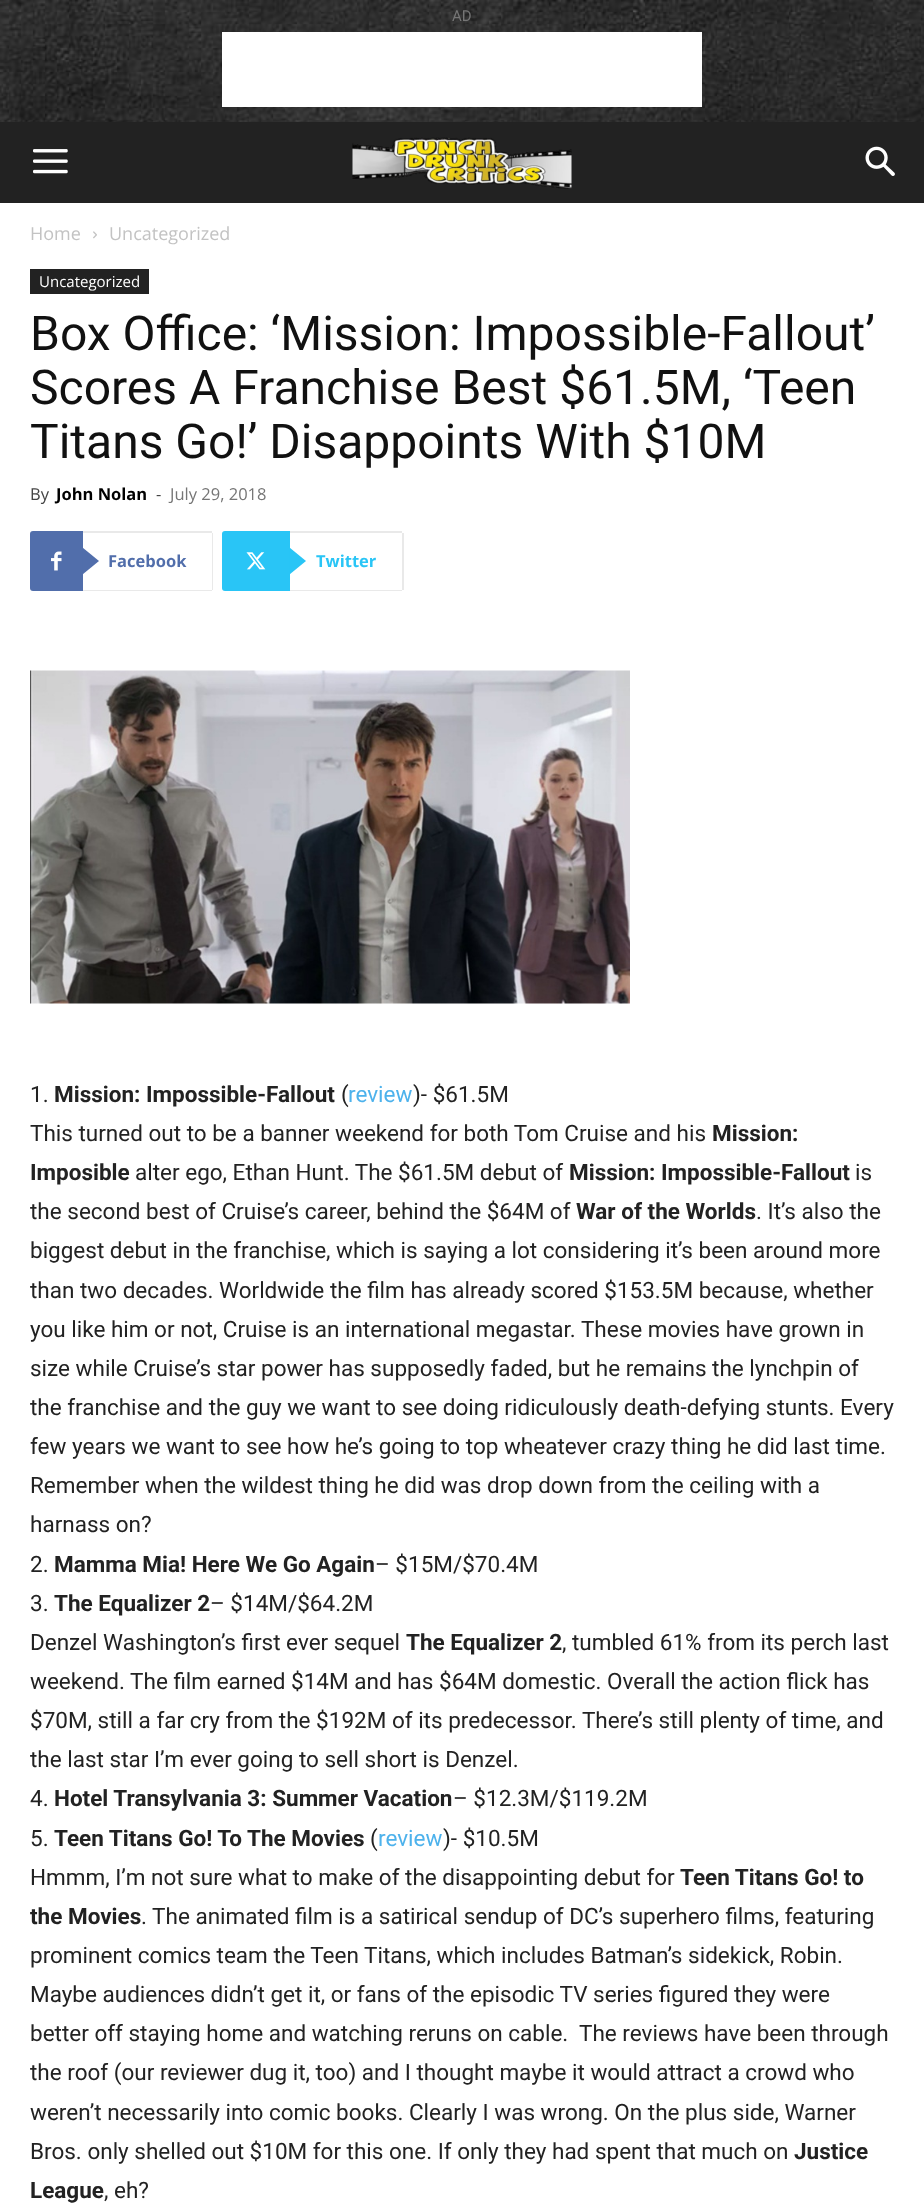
<!DOCTYPE html>
<meta charset="utf-8">
<style>body { margin: 0 } canvas { display: block }</style>
<canvas id="canvas" width="924" height="2211"></canvas>
<script type="module">
  const canvas = document.getElementById("canvas");
  const g = canvas.getContext("2d");
  g.miterLimit = 4;
  g.fontKerning = "normal";
  function drawText(s, x, y, [font, color]) {
    g.font = font;
    g.fillStyle = color;
    g.fillText(s, x, y);
  }
  function fillBox(x, y, w, h, color) {
    g.fillStyle = color;
    g.fillRect(x, y, w, h);
  }
  async function drawPicture(src, x, y, w, h) {
    const img = new Image();
    img.src = src;
    await img.decode();
    g.drawImage(img, x, y, w, h);
  }

  const s1 = ["15px Roboto", "#767676"];
  const s2 = ["18px Open Sans", "#C3C3C3"];
  const s3 = ["15px Open Sans", "#FFFFFF"];
  const s4 = ["48px Roboto", "#111111"];
  const s5 = ["16.5px Open Sans", "#444444"];
  const s6 = ["bold 16.5px Open Sans", "#000000"];
  const s7 = ["16.5px Open Sans", "#767676"];
  const s8 = ["bold 16.5px Open Sans", "#516EAB"];
  const s9 = ["bold 16.5px Open Sans", "#29C5F6"];
  const s10 = ["22.5px Roboto", "#222222"];
  const s11 = ["bold 22.5px Roboto", "#222222"];
  const s12 = ["22.5px Roboto", "#4DB2EC"];

  fillBox(0, 0, 924, 2211, "#FFFFFF");
  await drawPicture("pic1.png", 0, 0, 924, 122);
  drawText("AD", 452, 21, s1);
  fillBox(222, 32, 480, 75, "#FFFFFF");
  fillBox(0, 122, 924, 81, "#222222");
  await drawPicture("pic2.png", 33, 149, 35, 25);
  await drawPicture("pic3.png", 352, 137, 220, 52);
  await drawPicture("pic4.png", 865, 146, 30, 30);
  drawText("Home", 30, 240, s2);
  await drawPicture("pic5.png", 93, 231, 4, 8);
  drawText("Uncategorized", 109, 240, s2);
  fillBox(30, 269, 119, 25, "#222222");
  drawText("Uncategorized", 39, 287, s3);
  drawText("Box Office: ‘Mission: Impossible-Fallout’", 30, 350, s4);
  drawText("Scores A Franchise Best $61.5M, ‘Teen", 30, 404, s4);
  drawText("Titans Go!’ Disappoints With $10M", 30, 458, s4);
  drawText("By", 30, 500, s5);
  drawText("John Nolan", 56, 500, s6);
  drawText("-", 156, 500, s5);
  drawText("July 29, 2018", 170, 500, s7);
  fillBox(78, 531, 134, 2, "#E9E9E9");
  fillBox(78, 590, 134, 1, "#E9E9E9");
  g.fillStyle = "#516EAB";
  g.beginPath();
  g.roundRect(30, 531, 53, 60, [3, 0, 0, 3]);
  g.fill();
  await drawPicture("pic6.png", 51, 551, 11, 20);
  g.beginPath();
  g.moveTo(82.5, 574.5);
  g.lineTo(82.5, 547.5);
  g.lineTo(99, 561);
  g.closePath();
  g.fill();
  fillBox(212, 533, 1, 57, "#E9E9E9");
  drawText("Facebook", 108, 567, s8);
  fillBox(285, 531, 117, 2, "#E9E9E9");
  fillBox(285, 590, 117, 1, "#E9E9E9");
  g.fillStyle = "#29C5F6";
  g.beginPath();
  g.roundRect(222, 531, 68, 60, [3, 0, 0, 3]);
  g.fill();
  await drawPicture("pic7.png", 246, 552, 20, 18);
  g.beginPath();
  g.moveTo(289.5, 574.5);
  g.lineTo(289.5, 547.5);
  g.lineTo(306, 561);
  g.closePath();
  g.fill();
  fillBox(402, 533, 2, 57, "#E9E9E9");
  drawText("Twitter", 316, 567, s9);
  await drawPicture("pic8.png", 30, 670, 600, 334);
  drawText("1.", 30, 1102, s10);
  drawText("Mission: Impossible-Fallout", 54, 1102, s11);
  drawText("(", 341, 1102, s10);
  drawText("review", 348, 1102, s12);
  drawText(")- $61.5M", 413, 1102, s10);
  drawText("This turned out to be a banner weekend for both Tom Cruise and his", 30, 1141, s10);
  drawText("Mission:", 712, 1141, s11);
  drawText("Imposible", 30, 1180, s11);
  drawText("alter ego, Ethan Hunt. The $61.5M debut of", 135, 1180, s10);
  drawText("Mission: Impossible-Fallout", 569, 1180, s11);
  drawText("is", 855, 1180, s10);
  drawText("the second best of Cruise’s career, behind the $64M of", 30, 1219, s10);
  drawText("War of the Worlds", 576, 1219, s11);
  drawText(". It’s also the", 756, 1219, s10);
  drawText("biggest debut in the franchise, which is saying a lot considering it’s been around more", 30, 1258, s10);
  drawText("than two decades. Worldwide the film has already scored $153.5M because, whether", 30, 1298, s10);
  drawText("you like him or not, Cruise is an international megastar. These movies have grown in", 30, 1337, s10);
  drawText("size while Cruise’s star power has supposedly faded, but he remains the lynchpin of", 30, 1376, s10);
  drawText("the franchise and the guy we want to see doing ridiculously death-defying stunts. Every", 30, 1415, s10);
  drawText("few years we want to see how he’s going to top wheatever crazy thing he did last time.", 30, 1454, s10);
  drawText("Remember when the wildest thing he did was drop down from the ceiling with a", 30, 1493, s10);
  drawText("harnass on?", 30, 1532, s10);
  drawText("2.", 30, 1572, s10);
  drawText("Mamma Mia! Here We Go Again", 54, 1572, s11);
  drawText("– $15M/$70.4M", 375, 1572, s10);
  drawText("3.", 30, 1611, s10);
  drawText("The Equalizer 2", 54, 1611, s11);
  drawText("– $14M/$64.2M", 210, 1611, s10);
  drawText("Denzel Washington’s first ever sequel", 30, 1650, s10);
  drawText("The Equalizer 2", 406, 1650, s11);
  drawText(", tumbled 61% from its perch last", 562, 1650, s10);
  drawText("weekend. The film earned $14M and has $64M domestic. Overall the action flick has", 30, 1689, s10);
  drawText("$70M, still a far cry from the $192M of its predecessor. There’s still plenty of time, and", 30, 1728, s10);
  drawText("the last star I’m ever going to sell short is Denzel.", 30, 1767, s10);
  drawText("4.", 30, 1806, s10);
  drawText("Hotel Transylvania 3: Summer Vacation", 54, 1806, s11);
  drawText("– $12.3M/$119.2M", 453, 1806, s10);
  drawText("5.", 30, 1846, s10);
  drawText("Teen Titans Go! To The Movies", 54, 1846, s11);
  drawText("(", 370, 1846, s10);
  drawText("review", 378, 1846, s12);
  drawText(")- $10.5M", 443, 1846, s10);
  drawText("Hmmm, I’m not sure what to make of the disappointing debut for", 30, 1885, s10);
  drawText("Teen Titans Go! to", 680, 1885, s11);
  drawText("the Movies", 30, 1924, s11);
  drawText(". The animated film is a satirical sendup of DC’s superhero films, featuring", 141, 1924, s10);
  drawText("prominent comics team the Teen Titans, which includes Batman’s sidekick, Robin.", 30, 1963, s10);
  drawText("Maybe audiences didn’t get it, or fans of the episodic TV series figured they were", 30, 2002, s10);
  drawText("better off staying home and watching reruns on cable.  The reviews have been through", 30, 2041, s10);
  drawText("the roof (our reviewer dug it, too) and I thought maybe it would attract a crowd who", 30, 2080, s10);
  drawText("weren’t necessarily into comic books. Clearly I was wrong. On the plus side, Warner", 30, 2120, s10);
  drawText("Bros. only shelled out $10M for this one. If only they had spent that much on", 30, 2159, s10);
  drawText("Justice", 794, 2159, s11);
  drawText("League", 30, 2198, s11);
  drawText(", eh?", 104, 2198, s10);
</script>
